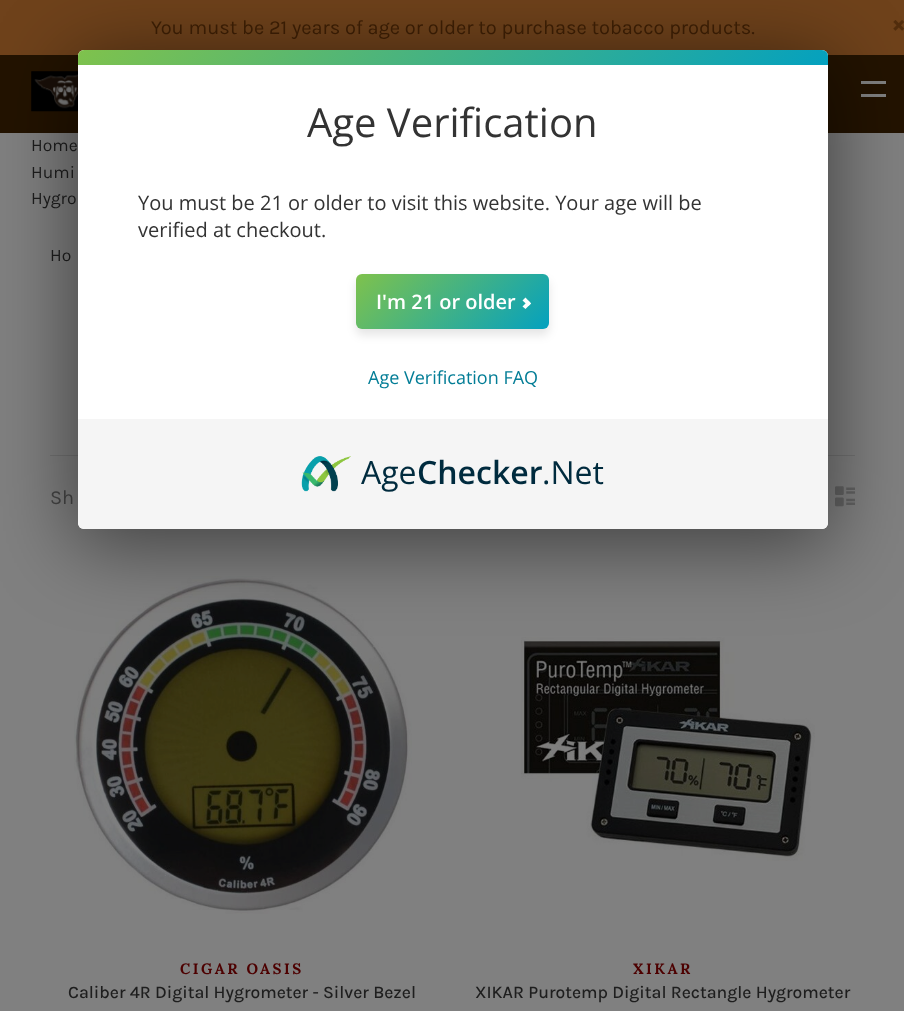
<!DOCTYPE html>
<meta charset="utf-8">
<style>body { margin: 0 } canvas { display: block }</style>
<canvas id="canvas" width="904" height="1011"></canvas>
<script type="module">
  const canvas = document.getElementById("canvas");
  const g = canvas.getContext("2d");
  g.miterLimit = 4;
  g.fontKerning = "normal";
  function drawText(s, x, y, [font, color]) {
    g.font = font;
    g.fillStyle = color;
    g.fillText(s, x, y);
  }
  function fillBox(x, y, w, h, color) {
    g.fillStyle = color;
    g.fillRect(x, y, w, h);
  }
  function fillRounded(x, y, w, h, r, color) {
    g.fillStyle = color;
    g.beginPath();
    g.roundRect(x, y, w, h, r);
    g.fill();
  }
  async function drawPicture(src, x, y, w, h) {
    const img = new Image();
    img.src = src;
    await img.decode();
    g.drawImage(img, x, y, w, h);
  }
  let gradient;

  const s1 = ["20px Karla", "#3F2005"];
  const s2 = ["17.5px Karla", "#1E1E1E"];
  const s3 = ["20px Karla", "#454545"];
  const s4 = ["bold 15px Lora", "#4D0000"];
  const s5 = ["500 17.5px Karla", "#1E1E1E"];
  const s6 = ["40px Open Sans", "#333333"];
  const s7 = ["20px Open Sans", "#333333"];
  const s8 = ["600 20px Open Sans", "#FFFFFF"];
  const s9 = ["18px Open Sans", "#037D96"];
  const s10 = ["32px Open Sans", "#002B3E"];
  const s11 = ["600 32px Open Sans", "#002B3E"];

  fillBox(0, 0, 904, 1011, "#808080");
  fillBox(0, 0, 904, 55, "#6F421B");
  drawText("You must be 21 years of age or older to purchase tobacco products.", 151, 34, s1);
  await drawPicture("pic1.png", 893, 20, 11, 11);
  fillBox(0, 55, 904, 78, "#231300");
  await drawPicture("pic2.png", 31, 71, 47, 41);
  fillBox(861, 81, 25, 3, "#808080");
  fillBox(861, 94, 25, 3, "#808080");
  drawText("Home", 31, 151, s2);
  drawText("Humi", 31, 178, s2);
  drawText("Hygro", 31, 204, s2);
  drawText("Ho", 50, 261, s2);
  fillBox(50, 455, 805, 1, "#737373");
  drawText("Sh", 50, 504, s3);
  await drawPicture("pic3.png", 835, 486, 20, 21);
  await drawPicture("pic4.png", 74, 576, 338, 338);
  g.letterSpacing = "2.5px";
  drawText("CIGAR OASIS", 180, 974, s4);
  g.letterSpacing = "0px";
  drawText("Caliber 4R Digital Hygrometer - Silver Bezel", 68, 998, s5);
  await drawPicture("pic5.png", 521, 637, 294, 224);
  g.letterSpacing = "2.5px";
  drawText("XIKAR", 633, 974, s4);
  g.letterSpacing = "0px";
  drawText("XIKAR Purotemp Digital Rectangle Hygrometer", 475, 998, s5);
  g.fillStyle = "rgba(0, 0, 0, 0.5)";
  g.filter = "blur(40px)";
  g.beginPath();
  g.roundRect(74, 59, 757, 486, 10);
  g.fill();
  g.filter = "none";
  fillRounded(78, 50, 750, 479, 6, "#FFFFFF");
  gradient = g.createLinearGradient(261, -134, 644, 249);
  gradient.addColorStop(0, "#7FC24C");
  gradient.addColorStop(1, "#04A1BF");
  g.fillStyle = gradient;
  g.beginPath();
  g.roundRect(78, 50, 750, 15, [6, 6, 0, 0]);
  g.fill();
  drawText("Age Verification", 307, 137, s6);
  drawText("You must be 21 or older to visit this website. Your age will be", 138, 210, s7);
  drawText("verified at checkout.", 138, 237, s7);
  g.fillStyle = "rgba(0, 0, 0, 0.1)";
  g.filter = "blur(5px)";
  g.beginPath();
  g.roundRect(356, 280, 193, 55, 6);
  g.fill();
  g.filter = "none";
  gradient = g.createLinearGradient(391, 239, 514, 363);
  gradient.addColorStop(0, "#7FC24C");
  gradient.addColorStop(1, "#04A1BF");
  g.fillStyle = gradient;
  g.beginPath();
  g.roundRect(356, 274, 193, 55, 6);
  g.fill();
  drawText("I'm 21 or older", 376, 309, s8);
  g.beginPath();
  g.moveTo(522.5, 300.5);
  g.lineTo(525.5, 297.5);
  g.lineTo(531, 303.5);
  g.lineTo(528.5, 306);
  g.closePath();
  g.fill();
  g.beginPath();
  g.moveTo(522.5, 306.5);
  g.lineTo(528.5, 300.5);
  g.lineTo(531, 303.5);
  g.lineTo(525.5, 309);
  g.closePath();
  g.fill();
  drawText("Age Verification FAQ", 368, 384, s9);
  g.fillStyle = "#F5F5F5";
  g.beginPath();
  g.roundRect(78, 419, 750, 110, [0, 0, 6, 6]);
  g.fill();
  await drawPicture("pic6.png", 301, 456, 50, 36);
  drawText("Age", 361, 484, s10);
  drawText("Checker", 417, 484, s11);
  drawText(".Net", 542, 484, s10);
</script>
